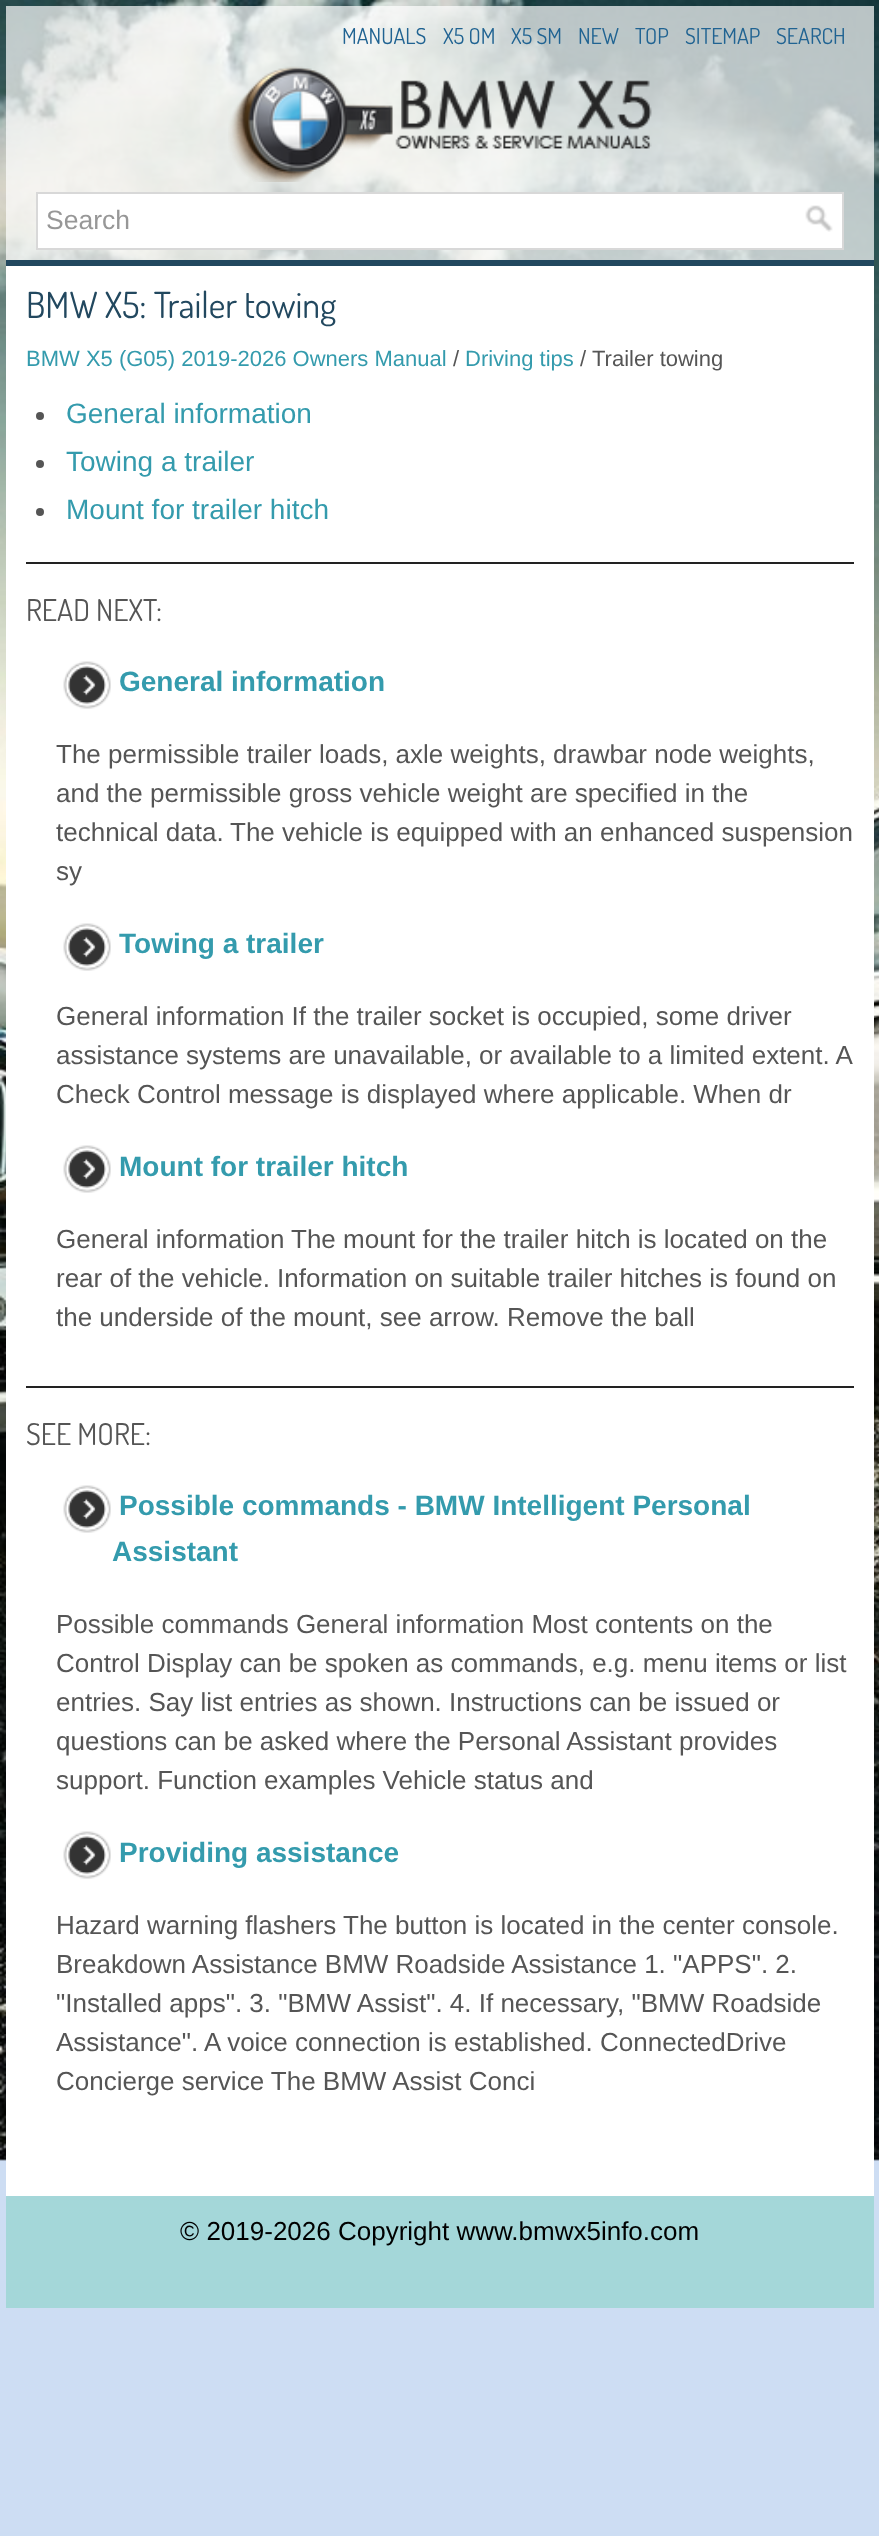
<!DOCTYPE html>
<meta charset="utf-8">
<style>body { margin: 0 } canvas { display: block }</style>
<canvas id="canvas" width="879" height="2536"></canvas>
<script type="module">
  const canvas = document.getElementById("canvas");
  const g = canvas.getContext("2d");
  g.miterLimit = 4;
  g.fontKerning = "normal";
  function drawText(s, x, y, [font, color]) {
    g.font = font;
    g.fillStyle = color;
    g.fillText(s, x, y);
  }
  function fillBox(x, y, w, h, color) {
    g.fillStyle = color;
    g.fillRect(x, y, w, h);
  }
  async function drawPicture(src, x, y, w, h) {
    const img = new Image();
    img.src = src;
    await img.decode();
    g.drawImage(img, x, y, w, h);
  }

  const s1 = ["22px Dosis", "#206392"];
  const s2 = ["26.5px Liberation Sans", "#979797"];
  const s3 = ["36px Dosis", "#22485F"];
  const s4 = ["22px Liberation Sans", "#349BAD"];
  const s5 = ["22px Liberation Sans", "#555555"];
  const s6 = ["28px Liberation Sans", "#349BAD"];
  const s7 = ["30px Dosis", "#555555"];
  const s8 = ["bold 28px Liberation Sans", "#349BAD"];
  const s9 = ["26px Liberation Sans", "#555555"];
  const s10 = ["26px Liberation Sans", "#000000"];

  fillBox(0, 0, 879, 2536, "#CDDDF3");
  await drawPicture("pic1.png", 0, 0, 879, 2161);
  fillBox(6, 6, 868, 254, "rgba(255, 255, 255, 0.7)");
  fillBox(6, 260, 868, 6, "#22485F");
  drawText("MANUALS", 342, 44, s1);
  drawText("X5 OM", 443, 44, s1);
  drawText("X5 SM", 511, 44, s1);
  drawText("NEW", 578, 44, s1);
  drawText("TOP", 635, 44, s1);
  drawText("SITEMAP", 685, 44, s1);
  drawText("SEARCH", 776, 44, s1);
  await drawPicture("pic2.png", 228, 66, 424, 116);
  g.fillStyle = "#FFFFFF";
  g.beginPath();
  g.rect(37, 193, 806, 56);
  g.fill();
  g.strokeStyle = "#D8D8D8";
  g.lineWidth = 2;
  g.stroke();
  drawText("Search", 46, 229, s2);
  await drawPicture("pic3.png", 805, 205, 28, 27);
  fillBox(6, 266, 868, 1930, "#FFFFFF");
  drawText("BMW X5: Trailer towing", 26, 318, s3);
  drawText("BMW X5 (G05) 2019-2026 Owners Manual", 26, 366, s4);
  drawText("/", 453, 366, s5);
  drawText("Driving tips", 465, 366, s4);
  drawText("/", 580, 366, s5);
  drawText("Trailer towing", 592, 366, s5);
  g.beginPath();
  g.arc(40, 416, 4, 0, Math.PI * 2);
  g.fill();
  drawText("General information", 66, 423, s6);
  g.fillStyle = "#555555";
  g.beginPath();
  g.arc(40, 464, 4, 0, Math.PI * 2);
  g.fill();
  drawText("Towing a trailer", 66, 471, s6);
  g.fillStyle = "#555555";
  g.beginPath();
  g.arc(40, 512, 4, 0, Math.PI * 2);
  g.fill();
  drawText("Mount for trailer hitch", 66, 519, s6);
  fillBox(26, 562, 828, 2, "#222222");
  drawText("READ NEXT:", 26, 621, s7);
  await drawPicture("pic4.png", 63, 661, 48, 48);
  drawText("General information", 119, 691, s8);
  drawText("The permissible trailer loads, axle weights, drawbar node weights,", 56, 763, s9);
  drawText("and the permissible gross vehicle weight are specified in the", 56, 802, s9);
  drawText("technical data.", 56, 841, s9);
  drawText("The vehicle is equipped with an enhanced suspension", 230, 841, s9);
  drawText("sy", 56, 880, s9);
  await drawPicture("pic4.png", 63, 923, 48, 48);
  drawText("Towing a trailer", 119, 953, s8);
  drawText("General information If the trailer socket is occupied, some driver", 56, 1025, s9);
  g.wordSpacing = "-0.1px";
  drawText("assistance systems are unavailable, or available to a limited extent. A", 56, 1064, s9);
  g.wordSpacing = "0px";
  drawText("Check Control message is displayed where applicable. When dr", 56, 1103, s9);
  await drawPicture("pic4.png", 63, 1145, 48, 48);
  drawText("Mount for trailer hitch", 119, 1176, s8);
  drawText("General information", 56, 1248, s9);
  drawText("The mount for the trailer hitch is located on the", 291, 1248, s9);
  drawText("rear of the vehicle. Information on suitable trailer hitches is found on", 56, 1287, s9);
  drawText("the underside of the mount, see arrow. Remove the ball", 56, 1326, s9);
  fillBox(26, 1386, 828, 2, "#222222");
  drawText("SEE MORE:", 26, 1445, s7);
  await drawPicture("pic4.png", 63, 1485, 48, 48);
  drawText("Possible commands - BMW Intelligent Personal", 119, 1515, s8);
  drawText("Assistant", 112, 1561, s8);
  drawText("Possible commands General information Most contents on the", 56, 1633, s9);
  drawText("Control Display can be spoken as commands, e.g. menu items or list", 56, 1672, s9);
  drawText("entries. Say list entries as shown. Instructions can be issued or", 56, 1711, s9);
  drawText("questions can be asked where the Personal Assistant provides", 56, 1750, s9);
  drawText("support. Function examples Vehicle status and", 56, 1789, s9);
  await drawPicture("pic4.png", 63, 1831, 48, 48);
  drawText("Providing assistance", 119, 1862, s8);
  drawText("Hazard warning flashers", 56, 1934, s9);
  drawText("The button is located in the center console.", 343, 1934, s9);
  drawText("Breakdown Assistance BMW Roadside Assistance 1. \"APPS\". 2.", 56, 1973, s9);
  drawText("\"Installed apps\". 3. \"BMW Assist\". 4. If necessary, \"BMW Roadside", 56, 2012, s9);
  drawText("Assistance\".", 56, 2051, s9);
  drawText("A voice connection is established. ConnectedDrive", 204, 2051, s9);
  drawText("Concierge service The BMW Assist Conci", 56, 2090, s9);
  fillBox(6, 2196, 868, 112, "#A4D7D9");
  drawText("© 2019-2026 Copyright www.bmwx5info.com", 180, 2240, s10);
</script>
